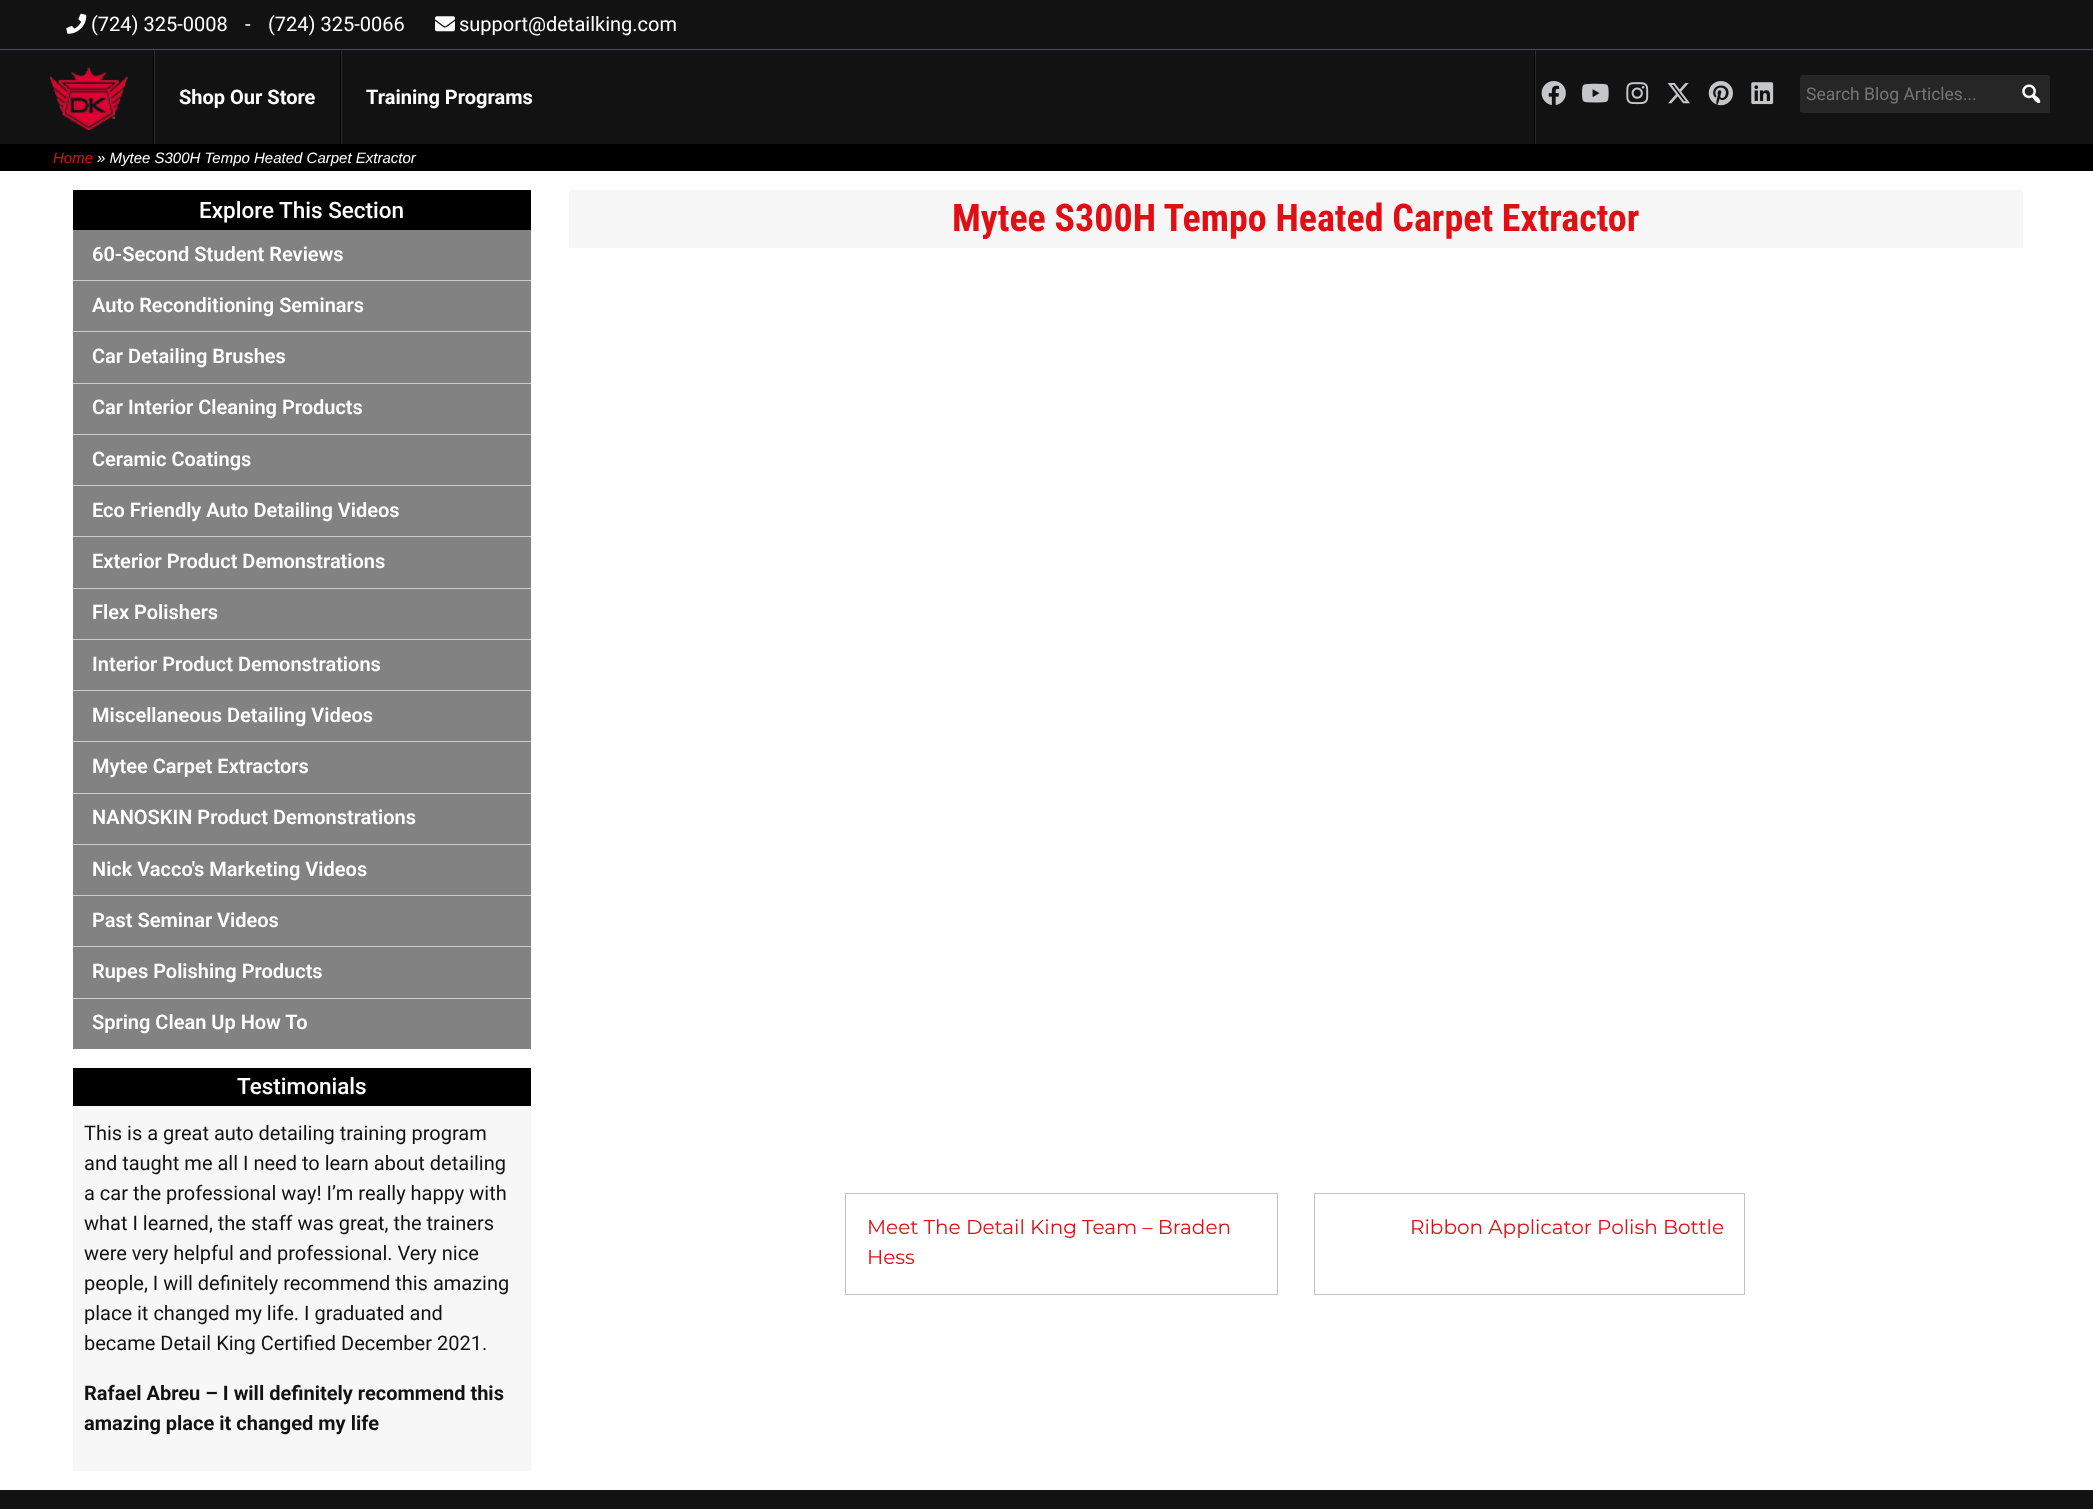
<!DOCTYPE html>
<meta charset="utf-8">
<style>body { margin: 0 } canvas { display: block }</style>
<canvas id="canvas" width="2093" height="1509"></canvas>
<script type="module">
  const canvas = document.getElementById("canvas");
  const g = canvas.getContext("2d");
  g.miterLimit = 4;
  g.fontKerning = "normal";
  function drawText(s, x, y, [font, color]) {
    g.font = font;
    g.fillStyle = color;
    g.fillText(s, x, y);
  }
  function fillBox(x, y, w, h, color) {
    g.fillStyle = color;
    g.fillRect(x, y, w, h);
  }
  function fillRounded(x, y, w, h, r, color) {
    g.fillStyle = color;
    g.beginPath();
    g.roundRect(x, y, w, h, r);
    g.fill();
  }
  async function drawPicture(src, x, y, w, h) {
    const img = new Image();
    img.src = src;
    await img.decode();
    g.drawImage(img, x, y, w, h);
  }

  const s1 = ["20px Roboto", "#FFFFFF"];
  const s2 = ["bold 20px Roboto", "#FFFFFF"];
  const s3 = ["17.5px Roboto", "#757575"];
  const s4 = ["italic 15px Liberation Sans", "#E10F14"];
  const s5 = ["italic 15px Liberation Sans", "#FFFFFF"];
  const s6 = ["500 22.5px Roboto", "#FFFFFF"];
  const s7 = ["600 20px Roboto", "#FFFFFF"];
  const s8 = ["20px Roboto", "#121212"];
  const s9 = ["bold 20px Roboto", "#121212"];
  const s10 = ["bold 38px Roboto Condensed", "#E10F14"];
  const s11 = ["20px Montserrat", "#E10F14"];

  fillBox(0, 0, 2093, 1509, "#121212");
  fillBox(0, 49, 2093, 1, "#E10F14");
  await drawPicture("pic1.png", 66, 13, 21, 21);
  drawText("(724) 325-0008", 91, 31, s1);
  drawText("-", 245, 31, s1);
  drawText("(724) 325-0066", 268, 31, s1);
  await drawPicture("pic2.png", 435, 16, 20, 16);
  drawText("support@detailking.com", 459, 31, s1);
  await drawPicture("pic3.png", 50, 67, 78, 63);
  fillBox(154, 50, 1, 94, "#2A2A2A");
  fillBox(153, 50, 1, 94, "#000000");
  drawText("Shop Our Store", 179, 104, s2);
  fillBox(341, 50, 1, 94, "#2A2A2A");
  fillBox(340, 50, 1, 94, "#000000");
  drawText("Training Programs", 366, 104, s2);
  fillBox(1535, 50, 1, 94, "#2A2A2A");
  fillBox(1534, 50, 1, 94, "#000000");
  await drawPicture("pic4.png", 1541, 81, 25, 24);
  await drawPicture("pic5.png", 1582, 83, 27, 20);
  await drawPicture("pic6.png", 1626, 82, 23, 23);
  await drawPicture("pic7.png", 1667, 83, 23, 21);
  await drawPicture("pic8.png", 1708, 81, 25, 25);
  await drawPicture("pic9.png", 1751, 82, 23, 23);
  fillRounded(1800, 75, 250, 38, 2.5, "#262626");
  drawText("Search Blog Articles...", 1806, 100, s3);
  await drawPicture("pic10.png", 2022, 84, 19, 19);
  fillBox(0, 144, 2093, 27, "#000000");
  drawText("Home", 53, 163, s4);
  drawText("» Mytee S300H Tempo Heated Carpet Extractor", 97, 163, s5);
  fillBox(0, 171, 2093, 1319, "#FFFFFF");
  fillBox(73, 190, 458, 40, "#000000");
  drawText("Explore This Section", 199, 218, s6);
  fillBox(73, 230, 458, 50, "#828282");
  fillBox(73, 280, 458, 1, "#CDCDCD");
  drawText("60-Second Student Reviews", 92, 261, s7);
  fillBox(73, 281, 458, 102, "#828282");
  fillBox(73, 331, 458, 1, "#CDCDCD");
  drawText("Auto Reconditioning Seminars", 92, 312, s7);
  fillBox(73, 383, 458, 1, "#CDCDCD");
  drawText("Car Detailing Brushes", 92, 363, s7);
  fillBox(73, 384, 458, 50, "#828282");
  fillBox(73, 434, 458, 1, "#CDCDCD");
  drawText("Car Interior Cleaning Products", 92, 414, s7);
  fillBox(73, 435, 458, 50, "#828282");
  fillBox(73, 485, 458, 1, "#CDCDCD");
  drawText("Ceramic Coatings", 92, 466, s7);
  fillBox(73, 486, 458, 102, "#828282");
  fillBox(73, 536, 458, 1, "#CDCDCD");
  drawText("Eco Friendly Auto Detailing Videos", 92, 517, s7);
  fillBox(73, 588, 458, 1, "#CDCDCD");
  drawText("Exterior Product Demonstrations", 92, 568, s7);
  fillBox(73, 589, 458, 50, "#828282");
  fillBox(73, 639, 458, 1, "#CDCDCD");
  drawText("Flex Polishers", 92, 619, s7);
  fillBox(73, 640, 458, 50, "#828282");
  fillBox(73, 690, 458, 1, "#CDCDCD");
  drawText("Interior Product Demonstrations", 92, 671, s7);
  fillBox(73, 691, 458, 102, "#828282");
  fillBox(73, 741, 458, 1, "#CDCDCD");
  drawText("Miscellaneous Detailing Videos", 92, 722, s7);
  fillBox(73, 793, 458, 1, "#CDCDCD");
  drawText("Mytee Carpet Extractors", 92, 773, s7);
  fillBox(73, 794, 458, 50, "#828282");
  fillBox(73, 844, 458, 1, "#CDCDCD");
  drawText("NANOSKIN Product Demonstrations", 92, 824, s7);
  fillBox(73, 845, 458, 50, "#828282");
  fillBox(73, 895, 458, 1, "#CDCDCD");
  drawText("Nick Vacco's Marketing Videos", 92, 876, s7);
  fillBox(73, 896, 458, 102, "#828282");
  fillBox(73, 946, 458, 1, "#CDCDCD");
  drawText("Past Seminar Videos", 92, 927, s7);
  fillBox(73, 998, 458, 1, "#CDCDCD");
  drawText("Rupes Polishing Products", 92, 978, s7);
  fillBox(73, 999, 458, 50, "#828282");
  drawText("Spring Clean Up How To", 92, 1029, s7);
  fillBox(73, 1068, 458, 38, "#000000");
  drawText("Testimonials", 237, 1094, s6);
  fillBox(73, 1106, 458, 365, "#F7F7F7");
  drawText("This is a great auto detailing training program", 84, 1140, s8);
  drawText("and taught me all I need to learn about detailing", 84, 1170, s8);
  drawText("a car the professional way! I’m really happy with", 84, 1200, s8);
  drawText("what I learned, the staff was great, the trainers", 84, 1230, s8);
  drawText("were very helpful and professional. Very nice", 84, 1260, s8);
  drawText("people, I will definitely recommend this amazing", 84, 1290, s8);
  drawText("place it changed my life. I graduated and", 84, 1320, s8);
  drawText("became Detail King Certified December 2021.", 84, 1350, s8);
  drawText("Rafael Abreu – I will definitely recommend this", 84, 1400, s9);
  drawText("amazing place it changed my life", 84, 1430, s9);
  fillBox(569, 190, 1454, 58, "#F7F7F7");
  drawText("Mytee S300H Tempo Heated Carpet Extractor", 952, 231, s10);
  g.strokeStyle = "#C3C3C3";
  g.strokeRect(845.5, 1193.5, 432, 101);
  drawText("Meet The Detail King Team – Braden", 867, 1234, s11);
  drawText("Hess", 867, 1264, s11);
  g.strokeRect(1314.5, 1193.5, 430, 101);
  drawText("Ribbon Applicator Polish Bottle", 1410, 1234, s11);
</script>
